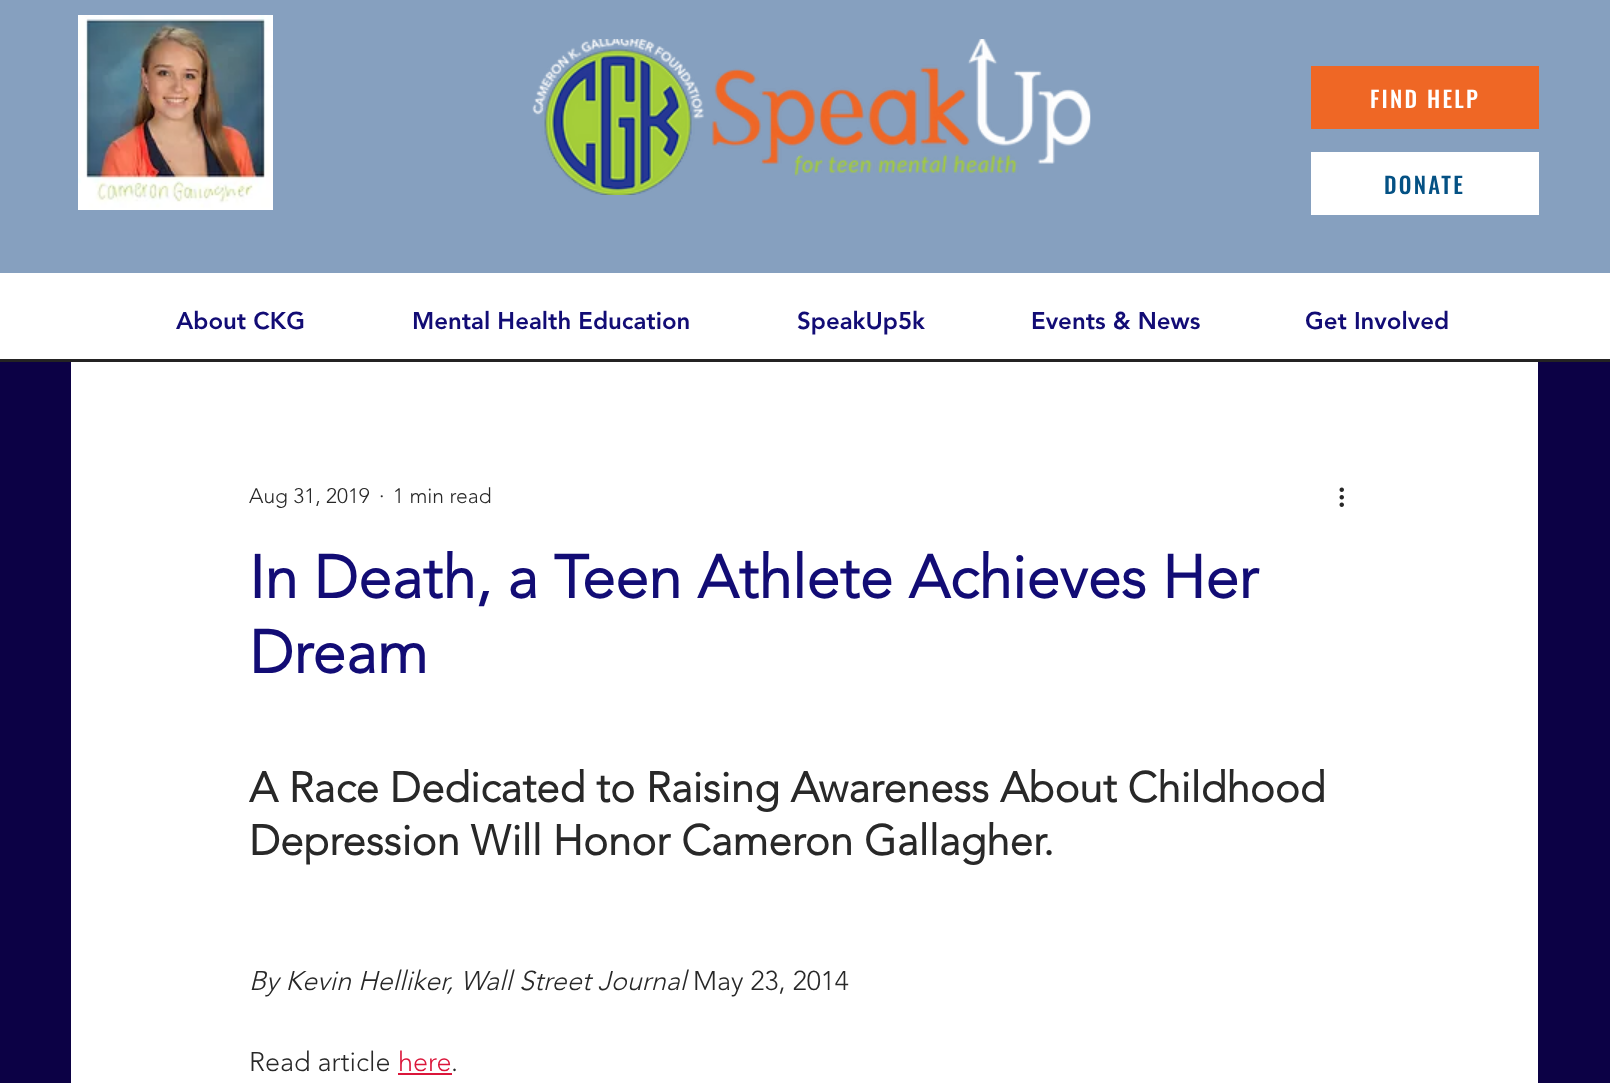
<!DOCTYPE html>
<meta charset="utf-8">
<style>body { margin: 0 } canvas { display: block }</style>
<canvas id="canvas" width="1610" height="1083"></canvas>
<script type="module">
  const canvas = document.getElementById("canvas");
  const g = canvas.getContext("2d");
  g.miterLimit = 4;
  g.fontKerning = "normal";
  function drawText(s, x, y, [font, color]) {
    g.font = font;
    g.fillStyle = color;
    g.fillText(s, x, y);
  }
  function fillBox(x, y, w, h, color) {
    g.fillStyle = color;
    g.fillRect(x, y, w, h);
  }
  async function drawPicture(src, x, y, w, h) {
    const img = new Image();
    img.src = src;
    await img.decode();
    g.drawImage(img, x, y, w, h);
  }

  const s1 = ["500 22.5px Oswald", "#FFFFFF"];
  const s2 = ["500 22.5px Oswald", "#045184"];
  const s3 = ["900 24px 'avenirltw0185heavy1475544'", "#120C75"];
  const s4 = ["300 21px 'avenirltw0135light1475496'", "#282828"];
  const s5 = ["bold 60px 'avenirltw0135light1475496'", "#120C75"];
  const s6 = ["bold 42px 'avenirltw0135light1475496'", "#282828"];
  const s7 = ["italic 300 27px 'avenirltw0135light1475496'", "#282828"];
  const s8 = ["300 27px 'avenirltw0135light1475496'", "#282828"];
  const s9 = ["300 27px 'avenirltw0135light1475496'", "#DB163A"];

  fillBox(0, 0, 1610, 1083, "#0C0145");
  fillBox(0, 0, 1610, 273, "#86A0BF");
  await drawPicture("pic1.png", 78, 15, 195, 195);
  await drawPicture("pic2.png", 532, 39, 559, 156);
  fillBox(1311, 66, 228, 63, "#EF6725");
  g.letterSpacing = "2.25px";
  drawText("FIND HELP", 1370, 108, s1);
  fillBox(1311, 152, 228, 63, "#FFFFFF");
  drawText("DONATE", 1384, 194, s2);
  fillBox(0, 273, 1610, 86, "#FFFFFF");
  g.letterSpacing = "0px";
  drawText("About CKG", 176, 329, s3);
  drawText("Mental Health Education", 412, 329, s3);
  drawText("SpeakUp5k", 797, 329, s3);
  drawText("Events & News", 1031, 329, s3);
  drawText("Get Involved", 1305, 329, s3);
  fillBox(0, 359, 1610, 3, "#242323");
  fillBox(71, 362, 1467, 721, "#FFFFFF");
  drawText("Aug 31, 2019", 249, 503, s4);
  drawText("·", 379, 503, s4);
  drawText("1 min read", 393, 503, s4);
  await drawPicture("pic3.png", 1339, 487, 5, 20);
  drawText("In Death, a Teen Athlete Achieves Her", 249, 598, s5);
  drawText("Dream", 249, 673, s5);
  drawText("A Race Dedicated to Raising Awareness About Childhood", 249, 802, s6);
  drawText("Depression Will Honor Cameron Gallagher.", 249, 855, s6);
  drawText("By Kevin Helliker, Wall Street Journal", 249, 990, s7);
  drawText("May 23, 2014", 693, 990, s8);
  drawText("Read article", 249, 1071, s8);
  drawText("here", 398, 1071, s9);
  fillBox(398, 1073, 54, 2, "#DB163A");
  drawText(".", 451, 1071, s8);
</script>
